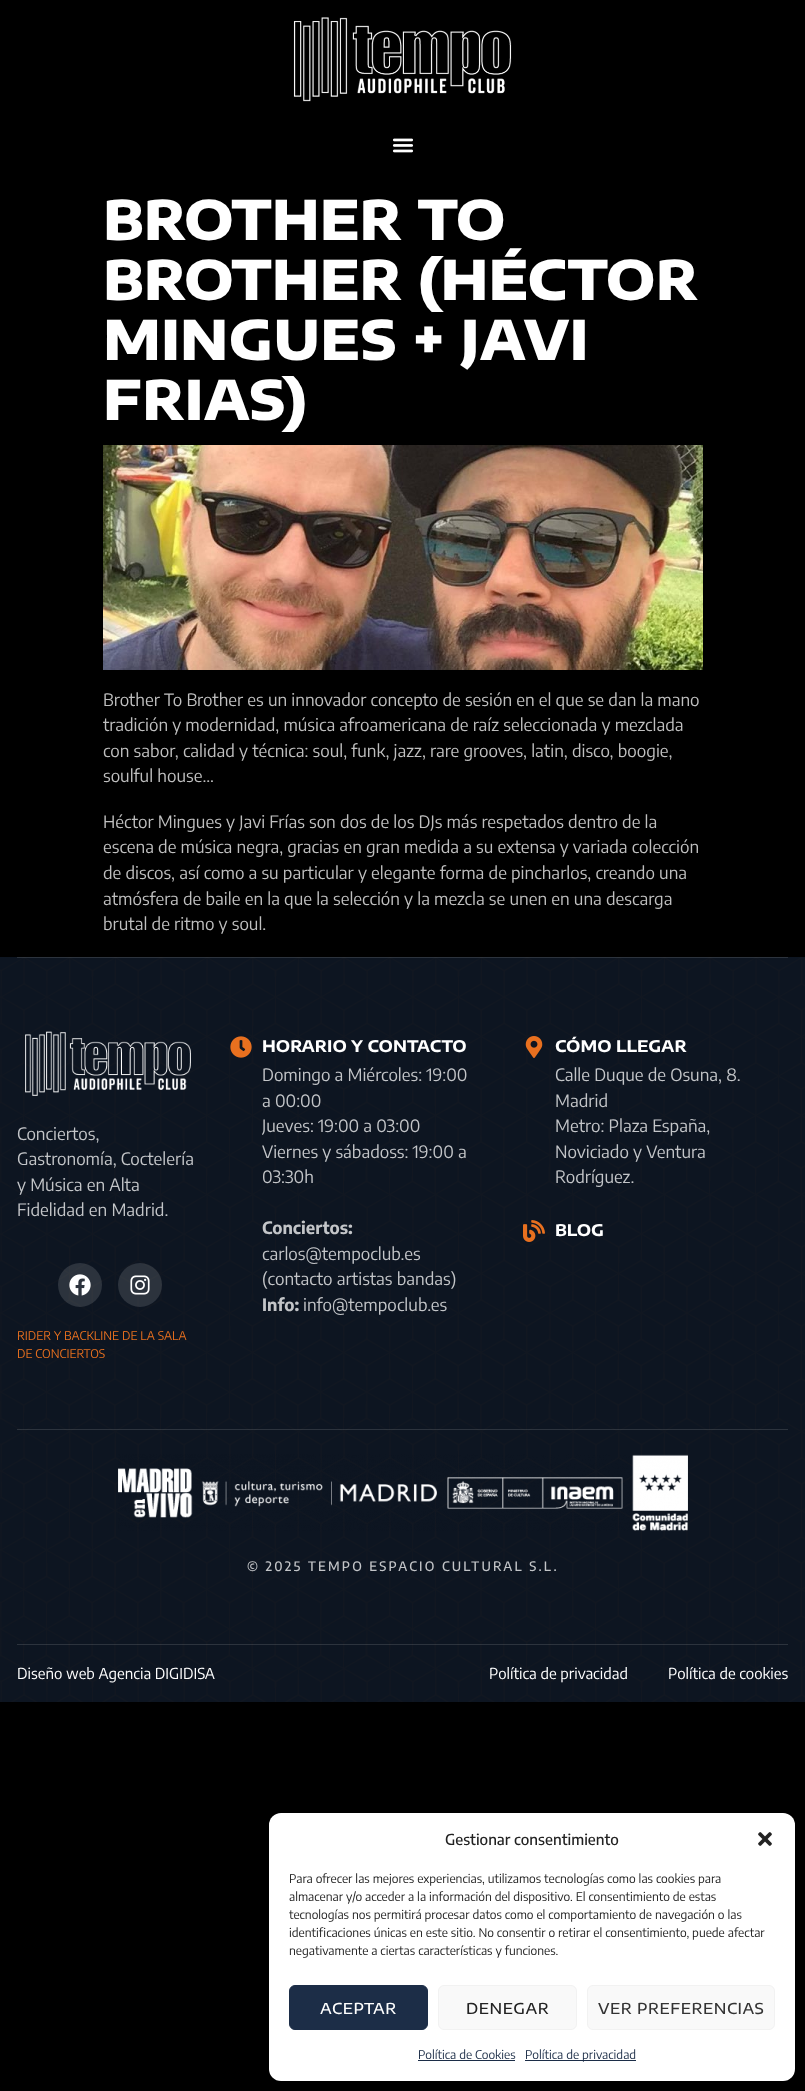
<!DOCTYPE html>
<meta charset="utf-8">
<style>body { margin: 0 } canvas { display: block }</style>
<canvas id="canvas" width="805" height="2091"></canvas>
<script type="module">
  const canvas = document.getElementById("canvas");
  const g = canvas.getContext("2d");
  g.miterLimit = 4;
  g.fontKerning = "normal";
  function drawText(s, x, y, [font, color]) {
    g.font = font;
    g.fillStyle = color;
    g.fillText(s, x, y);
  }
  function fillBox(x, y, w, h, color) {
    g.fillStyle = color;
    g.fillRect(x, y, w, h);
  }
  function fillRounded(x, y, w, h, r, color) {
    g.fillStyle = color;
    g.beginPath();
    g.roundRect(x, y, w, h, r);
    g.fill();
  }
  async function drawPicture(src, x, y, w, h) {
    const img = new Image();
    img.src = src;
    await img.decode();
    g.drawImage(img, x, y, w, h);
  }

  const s1 = ["800 54.4px Encode Sans Expanded", "#FFFFFF"];
  const s2 = ["17px Encode Sans Condensed", "#BFBFBF"];
  const s3 = ["17px Encode Sans Condensed", "#C3C5C8"];
  const s4 = ["12px Encode Sans Condensed", "#E8701F"];
  const s5 = ["bold 16px Encode Sans Expanded", "#FFFFFF"];
  const s6 = ["bold 17px Encode Sans Condensed", "#C3C5C8"];
  const s7 = ["500 13px Encode Sans Condensed", "#C3C5C8"];
  const s8 = ["15px Encode Sans Condensed", "#FFFFFF"];
  const s9 = ["500 15px Encode Sans Condensed", "#222222"];
  const s10 = ["12px Encode Sans Condensed", "#222222"];
  const s11 = ["500 15px Encode Sans Expanded", "#FFFFFF"];
  const s12 = ["500 15px Encode Sans Expanded", "#222222"];
  const s13 = ["500 15px Encode Sans Expanded", "#333333"];
  const s14 = ["12px Encode Sans Condensed", "#1C2D47"];

  fillBox(0, 0, 805, 2091, "#000000");
  await drawPicture("pic1.png", 293, 17, 219, 85);
  await drawPicture("pic2.png", 392, 138, 22, 15);
  drawText("BROTHER TO", 103, 240, s1);
  drawText("BROTHER (HÉCTOR", 103, 300, s1);
  drawText("MINGUES + JAVI", 103, 360, s1);
  drawText("FRIAS)", 103, 420, s1);
  await drawPicture("pic3.png", 103, 445, 600, 225);
  drawText("Brother To Brother es un innovador concepto de sesión en el que se dan la mano", 103, 706, s2);
  drawText("tradición y modernidad, música afroamericana de raíz seleccionada y mezclada", 103, 731, s2);
  drawText("con sabor, calidad y técnica: soul, funk, jazz, rare grooves, latin, disco, boogie,", 103, 757, s2);
  drawText("soulful house…", 103, 782, s2);
  drawText("Héctor Mingues y Javi Frías son dos de los DJs más respetados dentro de la", 103, 828, s2);
  drawText("escena de música negra, gracias en gran medida a su extensa y variada colección", 103, 853, s2);
  drawText("de discos, así como a su particular y elegante forma de pincharlos, creando una", 103, 879, s2);
  drawText("atmósfera de baile en la que la selección y la mezcla se unen en una descarga", 103, 905, s2);
  drawText("brutal de ritmo y soul.", 103, 930, s2);
  await drawPicture("pic4.png", 0, 957, 805, 745);
  fillBox(17, 957, 771, 1, "rgba(255, 255, 255, 0.13)");
  await drawPicture("pic5.png", 25, 1031, 166, 65);
  drawText("Conciertos,", 17, 1140, s3);
  drawText("Gastronomía, Coctelería", 17, 1165, s3);
  drawText("y Música en Alta", 17, 1191, s3);
  drawText("Fidelidad en Madrid.", 17, 1216, s3);
  g.fillStyle = "rgba(255, 255, 255, 0.13)";
  g.beginPath();
  g.arc(80, 1285, 22, 0, Math.PI * 2);
  g.fill();
  await drawPicture("pic6.png", 69, 1274, 22, 22);
  g.beginPath();
  g.arc(140, 1285, 22, 0, Math.PI * 2);
  g.fill();
  await drawPicture("pic7.png", 130, 1275, 20, 20);
  drawText("RIDER Y BACKLINE DE LA SALA", 17, 1340, s4);
  drawText("DE CONCIERTOS", 17, 1358, s4);
  await drawPicture("pic8.png", 230, 1036, 22, 22);
  drawText("HORARIO Y CONTACTO", 262, 1052, s5);
  drawText("Domingo a Miércoles: 19:00", 262, 1081, s3);
  drawText("a 00:00", 262, 1107, s3);
  drawText("Jueves: 19:00 a 03:00", 262, 1132, s3);
  drawText("Viernes y sábadoss: 19:00 a", 262, 1158, s3);
  drawText("03:30h", 262, 1183, s3);
  drawText("Conciertos:", 262, 1234, s6);
  drawText("carlos@tempoclub.es", 262, 1260, s3);
  drawText("(contacto artistas bandas)", 262, 1285, s3);
  drawText("Info:", 262, 1311, s6);
  drawText("info@tempoclub.es", 303, 1311, s3);
  await drawPicture("pic9.png", 525, 1036, 18, 22);
  drawText("CÓMO LLEGAR", 555, 1052, s5);
  drawText("Calle Duque de Osuna, 8.", 555, 1081, s3);
  drawText("Madrid", 555, 1107, s3);
  drawText("Metro: Plaza España,", 555, 1132, s3);
  drawText("Noviciado y Ventura", 555, 1158, s3);
  drawText("Rodríguez.", 555, 1183, s3);
  await drawPicture("pic10.png", 523, 1220, 22, 22);
  drawText("BLOG", 555, 1236, s5);
  fillBox(17, 1429, 771, 1, "rgba(255, 255, 255, 0.13)");
  await drawPicture("pic11.png", 118, 1454, 570, 77);
  g.letterSpacing = "2.2px";
  drawText("© 2025 TEMPO ESPACIO CULTURAL S.L.", 247, 1571, s7);
  fillBox(17, 1644, 771, 1, "rgba(255, 255, 255, 0.13)");
  g.letterSpacing = "0px";
  drawText("Diseño web Agencia DIGIDISA", 17, 1679, s8);
  drawText("Política de privacidad", 489, 1679, s8);
  drawText("Política de cookies", 668, 1679, s8);
  fillRounded(269, 1813, 526, 268, 12, "#FFFFFF");
  drawText("Gestionar consentimiento", 445, 1845, s9);
  await drawPicture("pic12.png", 758, 1832, 14, 14);
  drawText("Para ofrecer las mejores experiencias, utilizamos tecnologías como las cookies para", 289, 1883, s10);
  drawText("almacenar y/o acceder a la información del dispositivo. El consentimiento de estas", 289, 1901, s10);
  drawText("tecnologías nos permitirá procesar datos como el comportamiento de navegación o las", 289, 1919, s10);
  drawText("identificaciones únicas en este sitio. No consentir o retirar el consentimiento, puede afectar", 289, 1937, s10);
  drawText("negativamente a ciertas características y funciones.", 289, 1955, s10);
  g.fillStyle = "#1C2D47";
  g.beginPath();
  g.roundRect(289.5, 1985.5, 138, 44, 5.5);
  g.fill();
  g.strokeStyle = "#1C2D47";
  g.stroke();
  g.letterSpacing = "0.5px";
  drawText("ACEPTAR", 320, 2014, s11);
  g.fillStyle = "#F9F9F9";
  g.beginPath();
  g.roundRect(438.5, 1985.5, 138, 44, 5.5);
  g.fill();
  g.strokeStyle = "#F2F2F2";
  g.stroke();
  drawText("DENEGAR", 466, 2014, s12);
  g.fillStyle = "#F9F9F9";
  g.beginPath();
  g.roundRect(587.5, 1985.5, 187, 44, 5.5);
  g.fill();
  g.stroke();
  drawText("VER PREFERENCIAS", 598, 2014, s13);
  g.letterSpacing = "0px";
  drawText("Política de Cookies", 418, 2059, s14);
  fillBox(418, 2060, 97, 1, "#1C2D47");
  fillBox(525, 2060, 111, 1, "#1C2D47");
  drawText("Política de privacidad", 525, 2059, s14);
</script>
